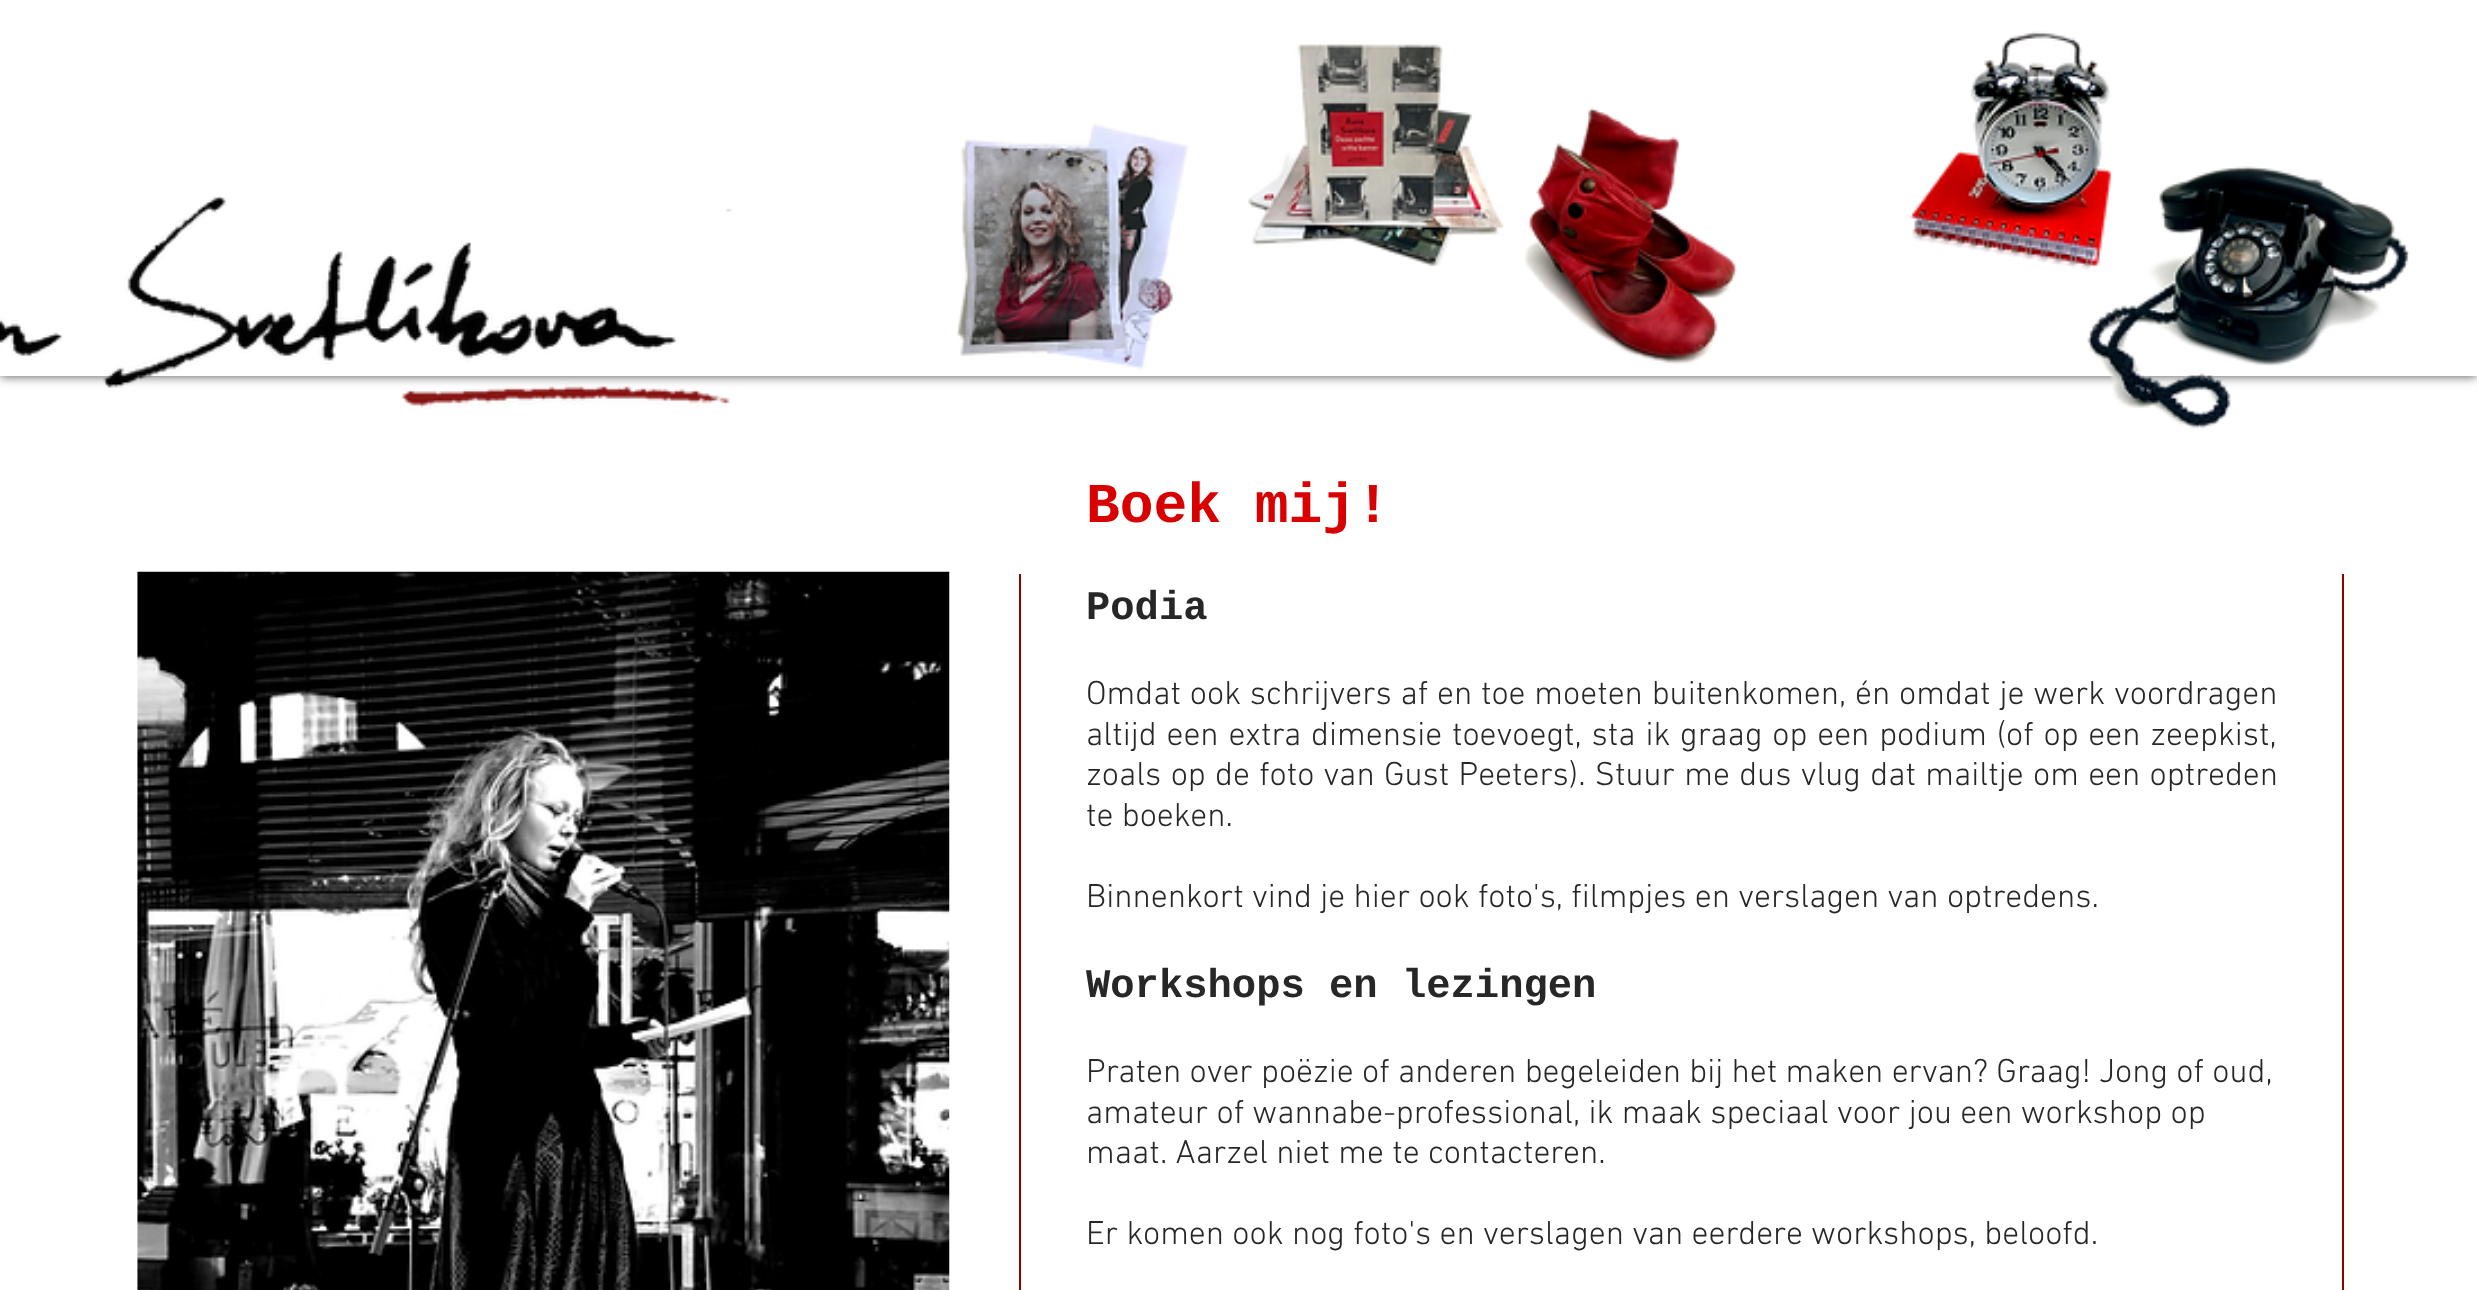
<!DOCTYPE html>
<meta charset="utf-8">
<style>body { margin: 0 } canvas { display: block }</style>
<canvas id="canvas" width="2477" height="1290"></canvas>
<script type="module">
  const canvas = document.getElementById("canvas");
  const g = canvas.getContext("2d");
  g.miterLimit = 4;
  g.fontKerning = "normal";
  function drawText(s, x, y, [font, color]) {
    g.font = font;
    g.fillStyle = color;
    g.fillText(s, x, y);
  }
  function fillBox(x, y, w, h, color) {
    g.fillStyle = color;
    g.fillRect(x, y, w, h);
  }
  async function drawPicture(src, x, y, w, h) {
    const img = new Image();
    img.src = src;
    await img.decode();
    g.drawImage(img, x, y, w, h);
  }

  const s1 = ["bold 56.25px Liberation Mono", "#D90000"];
  const s2 = ["bold 40.5px Liberation Mono", "#272727"];
  const s3 = ["300 33.75px 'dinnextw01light'", "#272727"];

  fillBox(0, 0, 2477, 1290, "#FFFFFF");
  g.fillStyle = "rgba(0, 0, 0, 0.7)";
  g.filter = "blur(5.5px)";
  g.beginPath();
  g.rect(0, 0, 2477, 376);
  g.fill();
  g.filter = "none";
  fillBox(0, 0, 2477, 376, "#FFFFFF");
  await drawPicture("pic1.png", 0, 195, 732, 214);
  await drawPicture("pic2.png", 956, 123, 233, 247);
  await drawPicture("pic3.png", 1248, 44, 256, 224);
  await drawPicture("pic4.png", 1524, 107, 214, 258);
  await drawPicture("pic6.png", 2087, 166, 323, 263);
  await drawPicture("pic5.png", 1910, 31, 202, 240);
  await drawPicture("pic7.png", 137, 571, 813, 719);
  fillBox(1019, 574, 2, 716, "#910000");
  drawText("Boek mij!", 1086, 522, s1);
  drawText("Podia", 1086, 619, s2);
  g.wordSpacing = "0.5px";
  drawText("Omdat ook schrijvers af en toe moeten buitenkomen, én omdat je werk voordragen", 1086, 704, s3);
  g.wordSpacing = "1.5px";
  drawText("altijd een extra dimensie toevoegt, sta ik graag op een podium (of op een zeepkist,", 1086, 745, s3);
  g.wordSpacing = "1px";
  drawText("zoals op de foto van Gust Peeters). Stuur me dus vlug dat mailtje om een optreden", 1086, 785, s3);
  g.wordSpacing = "0px";
  drawText("te boeken.", 1086, 826, s3);
  drawText("Binnenkort vind je hier ook foto's, filmpjes en verslagen van optredens.", 1086, 907, s3);
  drawText("Workshops en lezingen", 1086, 997, s2);
  drawText("Praten over poëzie of anderen begeleiden bij het maken ervan? Graag! Jong of oud,", 1086, 1082, s3);
  drawText("amateur of wannabe-professional, ik maak speciaal voor jou een workshop op", 1086, 1123, s3);
  drawText("maat. Aarzel niet me te contacteren.", 1086, 1163, s3);
  drawText("Er komen ook nog foto's en verslagen van eerdere workshops, beloofd.", 1086, 1244, s3);
  fillBox(2342, 574, 2, 716, "#910000");
</script>
